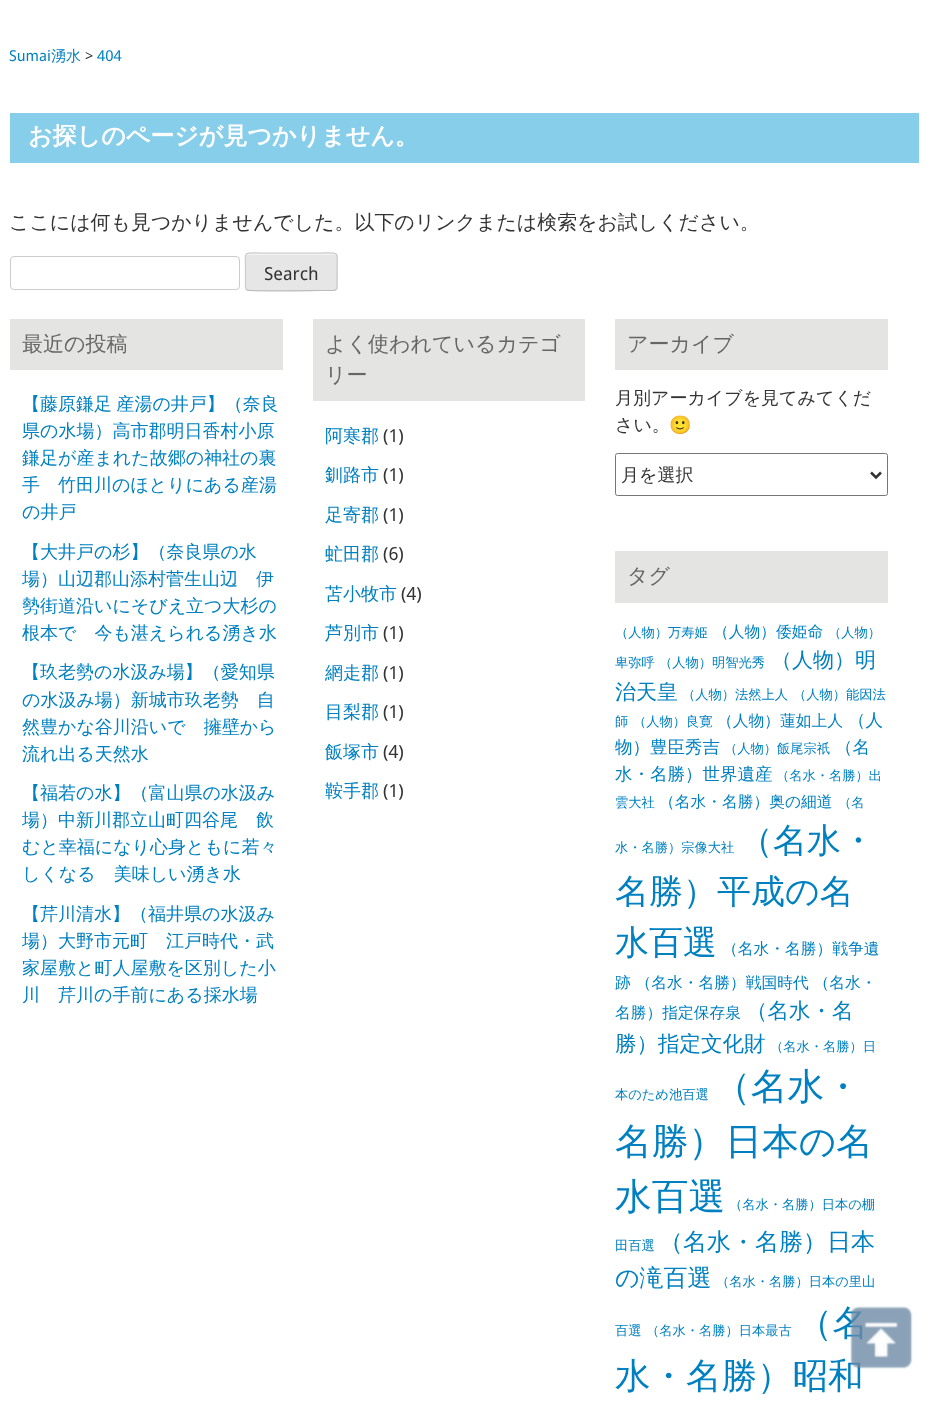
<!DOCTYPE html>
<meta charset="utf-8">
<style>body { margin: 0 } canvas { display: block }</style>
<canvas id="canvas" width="946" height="1402"></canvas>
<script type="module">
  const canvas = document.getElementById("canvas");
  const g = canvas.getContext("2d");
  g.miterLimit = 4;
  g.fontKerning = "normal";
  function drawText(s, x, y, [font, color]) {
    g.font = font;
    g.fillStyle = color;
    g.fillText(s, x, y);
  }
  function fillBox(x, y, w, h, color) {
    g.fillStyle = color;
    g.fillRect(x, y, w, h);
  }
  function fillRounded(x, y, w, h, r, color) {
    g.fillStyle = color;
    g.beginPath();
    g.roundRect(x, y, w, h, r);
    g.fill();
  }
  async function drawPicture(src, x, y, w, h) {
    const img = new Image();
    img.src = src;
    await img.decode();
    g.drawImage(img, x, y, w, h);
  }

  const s1 = ["15px Droid Sans", "#0080C0"];
  const s2 = ["500 15px WenQuanYi Zen Hei", "#0080C0"];
  const s3 = ["15px Droid Sans", "#333333"];
  const s4 = ["bold 24px WenQuanYi Zen Hei", "#FFFFFF"];
  const s5 = ["500 19.95px WenQuanYi Zen Hei", "#333333"];
  const s6 = ["18px Droid Sans", "#333333"];
  const s7 = ["500 21px WenQuanYi Zen Hei", "#666666"];
  const s8 = ["500 18px WenQuanYi Zen Hei", "#0080C0"];
  const s9 = ["500 18px WenQuanYi Zen Hei", "#333333"];
  const s10 = ["18px Noto Color Emoji", "#333333"];
  const s11 = ["500 13.25px WenQuanYi Zen Hei", "#0080C0"];
  const s12 = ["500 15.75px WenQuanYi Zen Hei", "#0080C0"];
  const s13 = ["500 21px WenQuanYi Zen Hei", "#0080C0"];
  const s14 = ["500 17.5px WenQuanYi Zen Hei", "#0080C0"];
  const s15 = ["500 34px WenQuanYi Zen Hei", "#0080C0"];
  const s16 = ["500 21.5px WenQuanYi Zen Hei", "#0080C0"];
  const s17 = ["500 36.75px WenQuanYi Zen Hei", "#0080C0"];
  const s18 = ["500 24px WenQuanYi Zen Hei", "#0080C0"];
  const s19 = ["500 35.5px WenQuanYi Zen Hei", "#0080C0"];

  fillBox(0, 0, 946, 1402, "#FFFFFF");
  drawText("Sumai", 9, 61, s1);
  drawText("湧水", 51, 61, s2);
  drawText(">", 85, 61, s3);
  drawText("404", 97, 61, s1);
  fillBox(10, 113, 909, 50, "#87CEEB");
  drawText("お探しのページが見つかりません。", 28, 144, s4);
  drawText("ここには何も見つかりませんでした。以下のリンクまたは検索をお試しください。", 9, 229, s5);
  g.beginPath();
  g.roundRect(10.5, 256.5, 229, 33, 3.5);
  g.strokeStyle = "#CCCCCC";
  g.stroke();
  fillRounded(245, 253, 93, 38, 4, "#E6E6E6");
  g.fillStyle = "#F3F3F3";
  g.beginPath();
  g.moveTo(249, 255);
  g.lineTo(334, 255);
  g.bezierCurveTo(335, 255, 336, 256, 336, 258);
  g.bezierCurveTo(336, 250, 325, 254, 319, 254);
  g.lineTo(263, 254);
  g.bezierCurveTo(257, 254, 246, 250, 246, 258);
  g.bezierCurveTo(246, 256, 247, 255, 249, 255);
  g.closePath();
  g.fill();
  g.beginPath();
  g.moveTo(336, 289.5);
  g.lineTo(334, 290.5);
  g.lineTo(319.5, 290.5);
  g.bezierCurveTo(311.5, 290.5, 249, 291.5, 247, 290);
  g.lineTo(246.5, 289.5);
  g.strokeStyle = "#BBBBBB";
  g.lineWidth = 1.2;
  g.stroke();
  g.beginPath();
  g.moveTo(246.5, 289.5);
  g.bezierCurveTo(245, 288, 245.5, 284, 245.5, 282.5);
  g.lineTo(245.5, 272);
  g.bezierCurveTo(245.5, 250, 241.5, 253, 263, 253);
  g.lineTo(319.5, 253);
  g.bezierCurveTo(341, 253, 337, 250, 337, 272);
  g.lineTo(337, 282.5);
  g.bezierCurveTo(337, 284, 337.5, 288, 336, 289.5);
  g.strokeStyle = "#CCCCCC";
  g.stroke();
  drawText("Search", 264, 280, s6);
  fillBox(10, 319, 273, 51, "#E4E4E2");
  drawText("最近の投稿", 22, 351, s7);
  g.wordSpacing = "-1px";
  drawText("【藤原鎌足 産湯の井戸】（奈良", 22, 410, s8);
  g.wordSpacing = "0px";
  drawText("県の水場）高市郡明日香村小原", 22, 437, s8);
  drawText("鎌足が産まれた故郷の神社の裏", 22, 464, s8);
  drawText("手　竹田川のほとりにある産湯", 22, 491, s8);
  drawText("の井戸", 22, 518, s8);
  drawText("【大井戸の杉】（奈良県の水", 22, 558, s8);
  drawText("場）山辺郡山添村菅生山辺　伊", 22, 585, s8);
  drawText("勢街道沿いにそびえ立つ大杉の", 22, 612, s8);
  drawText("根本で　今も湛えられる湧き水", 22, 639, s8);
  drawText("【玖老勢の水汲み場】（愛知県", 22, 678, s8);
  drawText("の水汲み場）新城市玖老勢　自", 22, 706, s8);
  drawText("然豊かな谷川沿いで　擁壁から", 22, 733, s8);
  drawText("流れ出る天然水", 22, 760, s8);
  drawText("【福若の水】（富山県の水汲み", 22, 799, s8);
  drawText("場）中新川郡立山町四谷尾　飲", 22, 826, s8);
  drawText("むと幸福になり心身ともに若々", 22, 853, s8);
  drawText("しくなる　美味しい湧き水", 22, 880, s8);
  drawText("【芹川清水】（福井県の水汲み", 22, 920, s8);
  drawText("場）大野市元町　江戸時代・武", 22, 947, s8);
  drawText("家屋敷と町人屋敷を区別した小", 22, 974, s8);
  drawText("川　芹川の手前にある採水場", 22, 1001, s8);
  fillBox(313, 319, 272, 82, "#E4E4E2");
  drawText("よく使われているカテゴ", 325, 351, s7);
  drawText("リー", 325, 382, s7);
  drawText("阿寒郡", 325, 442, s8);
  drawText("(1)", 383, 442, s6);
  drawText("釧路市", 325, 481, s8);
  drawText("(1)", 383, 481, s6);
  drawText("足寄郡", 325, 521, s8);
  drawText("(1)", 383, 521, s6);
  drawText("虻田郡", 325, 560, s8);
  drawText("(6)", 383, 560, s6);
  drawText("苫小牧市", 325, 600, s8);
  drawText("(4)", 401, 600, s6);
  drawText("芦別市", 325, 639, s8);
  drawText("(1)", 383, 639, s6);
  drawText("網走郡", 325, 679, s8);
  drawText("(1)", 383, 679, s6);
  drawText("目梨郡", 325, 718, s8);
  drawText("(1)", 383, 718, s6);
  drawText("飯塚市", 325, 758, s8);
  drawText("(4)", 383, 758, s6);
  drawText("鞍手郡", 325, 797, s8);
  drawText("(1)", 383, 797, s6);
  fillBox(615, 319, 273, 51, "#E4E4E2");
  drawText("アーカイブ", 627, 351, s7);
  drawText("月別アーカイブを見てみてくだ", 615, 404, s9);
  drawText("さい。", 615, 431, s9);
  drawText("🙂", 669, 431, s10);
  g.beginPath();
  g.roundRect(615.5, 453.5, 272, 42, 2);
  g.strokeStyle = "#767676";
  g.lineWidth = 1;
  g.stroke();
  g.beginPath();
  g.moveTo(871, 472.5);
  g.lineTo(876, 477.5);
  g.lineTo(881, 472.5);
  g.strokeStyle = "#333333";
  g.lineWidth = 2.5;
  g.stroke();
  drawText("月を選択", 621, 481, s9);
  fillBox(615, 551, 273, 52, "#E4E4E2");
  drawText("タグ", 627, 583, s7);
  drawText("（人物）万寿姫", 615, 637, s11);
  drawText("（人物）倭姫命", 713, 637, s12);
  drawText("（人物）", 828, 637, s11);
  drawText("卑弥呼", 615, 667, s11);
  drawText("（人物）明智光秀", 659, 667, s11);
  drawText("（人物）明", 771, 667, s13);
  drawText("治天皇", 615, 699, s13);
  drawText("（人物）法然上人", 682, 699, s11);
  drawText("（人物）能因法", 793, 699, s11);
  drawText("師", 615, 726, s11);
  drawText("（人物）良寛", 633, 726, s11);
  drawText("（人物）蓮如上人", 717, 726, s12);
  drawText("（人", 848, 726, s14);
  drawText("物）豊臣秀吉", 615, 753, s14);
  drawText("（人物）飯尾宗祇", 724, 753, s11);
  drawText("（名", 835, 753, s14);
  drawText("水・名勝）世界遺産", 615, 780, s14);
  drawText("（名水・名勝）出", 776, 780, s11);
  drawText("雲大社", 615, 807, s11);
  drawText("（名水・名勝）奥の細道", 659, 807, s12);
  drawText("（名", 838, 807, s11);
  drawText("水・名勝）宗像大社", 615, 852, s11);
  drawText("（名水・", 739, 852, s15);
  drawText("名勝）平成の名", 615, 903, s15);
  drawText("水百選", 615, 954, s15);
  drawText("（名水・名勝）戦争遺", 722, 954, s12);
  drawText("跡 （名水・名勝）戦国時代 （名水・", 615, 988, s12);
  drawText("名勝）指定保存泉", 615, 1018, s12);
  drawText("（名水・名", 746, 1018, s16);
  drawText("勝）指定文化財", 615, 1051, s16);
  drawText("（名水・名勝）日", 770, 1051, s11);
  drawText("本のため池百選", 615, 1099, s11);
  drawText("（名水・", 714, 1099, s17);
  drawText("名勝）日本の名", 615, 1154, s17);
  drawText("水百選", 615, 1209, s17);
  drawText("（名水・名勝）日本の棚", 729, 1209, s11);
  drawText("田百選", 615, 1250, s11);
  drawText("（名水・名勝）日本", 659, 1250, s18);
  drawText("の滝百選", 615, 1286, s18);
  drawText("（名水・名勝）日本の里山", 716, 1286, s11);
  drawText("百選", 615, 1335, s11);
  drawText("（名水・名勝）日本最古", 646, 1335, s11);
  drawText("（名", 797, 1335, s19);
  drawText("水・名勝）昭和", 615, 1388, s19);
  await drawPicture("pic1.png", 850, 1306, 63, 63);
</script>
